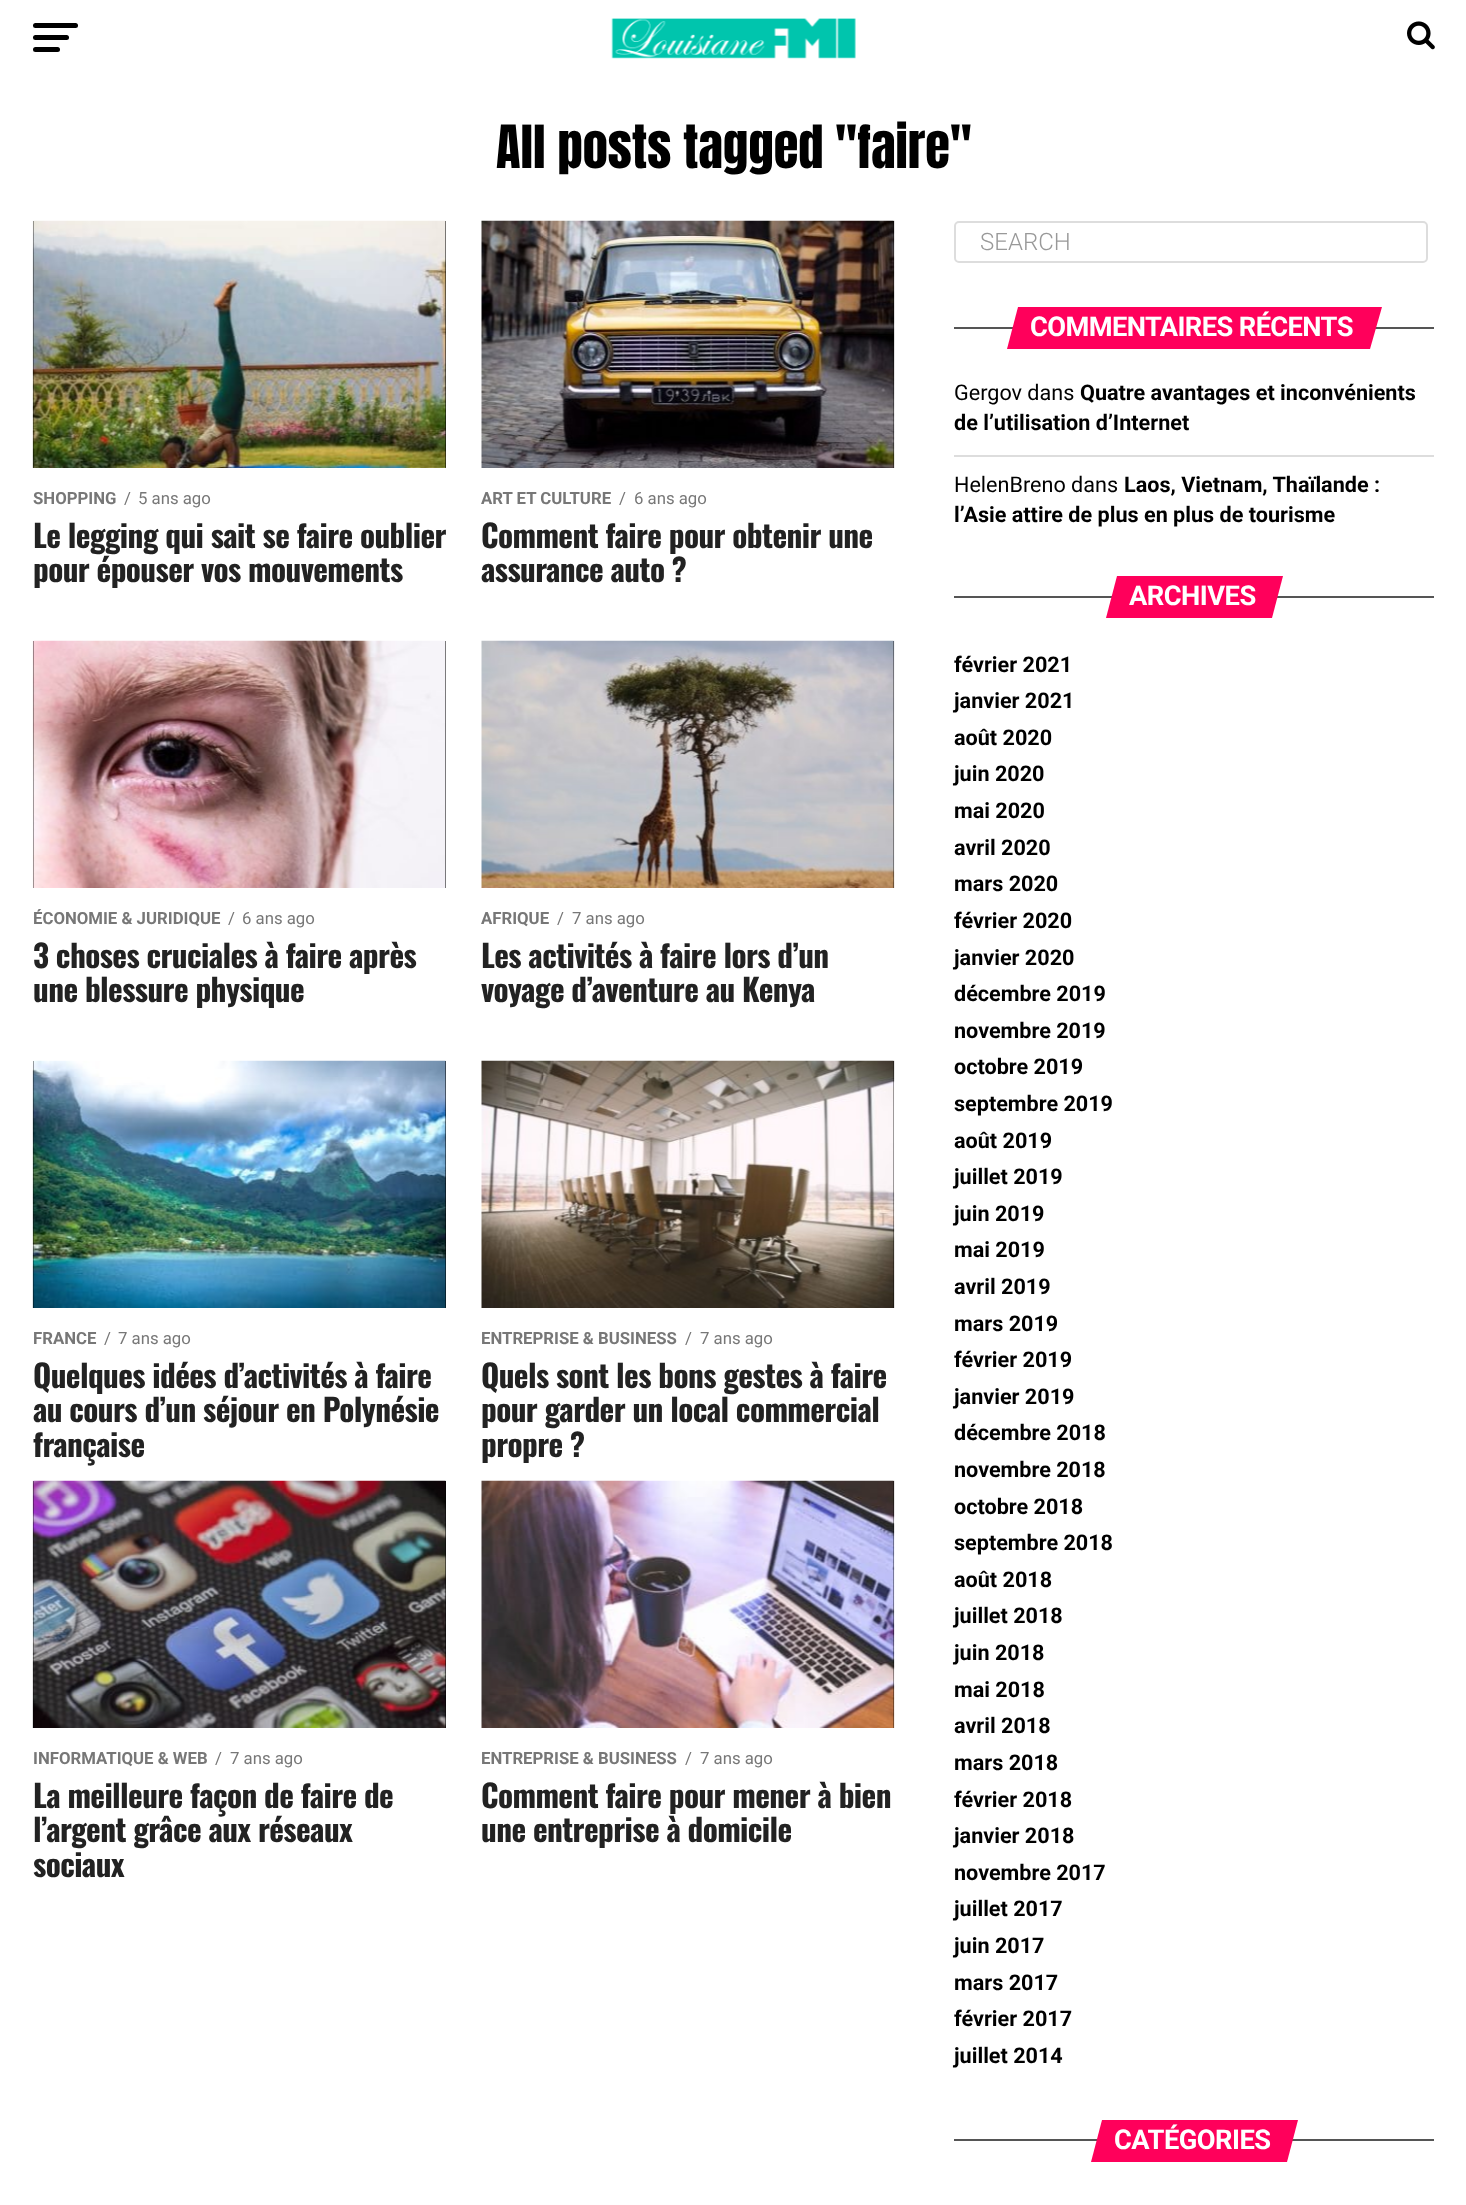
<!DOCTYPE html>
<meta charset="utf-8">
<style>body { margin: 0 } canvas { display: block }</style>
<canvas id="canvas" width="1466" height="2205"></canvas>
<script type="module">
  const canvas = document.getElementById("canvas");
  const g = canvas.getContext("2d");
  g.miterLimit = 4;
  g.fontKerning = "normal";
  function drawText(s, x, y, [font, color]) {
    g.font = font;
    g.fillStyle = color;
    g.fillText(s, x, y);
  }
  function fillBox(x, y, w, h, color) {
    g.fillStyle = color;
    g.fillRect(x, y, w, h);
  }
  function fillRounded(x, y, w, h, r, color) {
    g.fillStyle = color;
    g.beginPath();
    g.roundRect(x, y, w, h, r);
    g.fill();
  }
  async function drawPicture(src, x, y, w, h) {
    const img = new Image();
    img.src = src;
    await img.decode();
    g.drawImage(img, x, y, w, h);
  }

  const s1 = ["50.5px Anton", "#000000"];
  const s2 = ["bold 16.75px Roboto", "#777777"];
  const s3 = ["16.75px Roboto", "#777777"];
  const s4 = ["bold 31.25px Oswald", "#222222"];
  const s5 = ["300 24px Roboto", "#999999"];
  const s6 = ["bold 27.25px Roboto", "#FFFFFF"];
  const s7 = ["21.6px Roboto", "#000000"];
  const s8 = ["bold 21.6px Roboto", "#000000"];

  fillBox(0, 0, 1466, 2205, "#FFFFFF");
  fillRounded(33, 23, 45, 5, 2.5, "#000000");
  fillRounded(33, 35, 36, 5, 2.5, "#000000");
  fillRounded(33, 47, 27, 5, 2.5, "#000000");
  await drawPicture("pic1.png", 611, 18, 245, 41);
  await drawPicture("pic2.png", 1407, 21, 28, 29);
  drawText("All posts tagged \"faire\"", 496, 168, s1);
  fillBox(33, 221, 413, 247, "#000000");
  await drawPicture("pic3.png", 32, 220, 414, 248);
  drawText("SHOPPING", 33, 504, s2);
  drawText("/", 124, 504, s3);
  drawText("5 ans ago", 138, 504, s3);
  g.letterSpacing = "-0.6px";
  drawText("Le legging qui sait se faire oublier", 33, 548, s4);
  drawText("pour épouser vos mouvements", 33, 582, s4);
  fillBox(893, 221, 1, 247, "#000000");
  await drawPicture("pic4.png", 481, 220, 414, 248);
  g.letterSpacing = "0px";
  drawText("ART ET CULTURE", 481, 504, s2);
  drawText("/", 619, 504, s3);
  drawText("6 ans ago", 634, 504, s3);
  g.letterSpacing = "-0.6px";
  drawText("Comment faire pour obtenir une", 481, 548, s4);
  drawText("assurance auto ?", 481, 582, s4);
  fillBox(33, 641, 413, 247, "#000000");
  await drawPicture("pic5.png", 32, 640, 414, 248);
  g.letterSpacing = "0px";
  drawText("ÉCONOMIE & JURIDIQUE", 33, 924, s2);
  drawText("/", 228, 924, s3);
  drawText("6 ans ago", 242, 924, s3);
  g.letterSpacing = "-0.6px";
  drawText("3 choses cruciales à faire après", 33, 968, s4);
  drawText("une blessure physique", 33, 1002, s4);
  fillBox(893, 641, 1, 247, "#000000");
  await drawPicture("pic6.png", 481, 640, 414, 248);
  g.letterSpacing = "0px";
  drawText("AFRIQUE", 481, 924, s2);
  drawText("/", 557, 924, s3);
  drawText("7 ans ago", 572, 924, s3);
  g.letterSpacing = "-0.6px";
  drawText("Les activités à faire lors d’un", 481, 968, s4);
  drawText("voyage d’aventure au Kenya", 481, 1002, s4);
  fillBox(33, 1061, 413, 247, "#000000");
  await drawPicture("pic7.png", 32, 1060, 414, 248);
  g.letterSpacing = "0px";
  drawText("FRANCE", 33, 1344, s2);
  drawText("/", 104, 1344, s3);
  drawText("7 ans ago", 118, 1344, s3);
  g.letterSpacing = "-0.6px";
  drawText("Quelques idées d’activités à faire", 33, 1388, s4);
  drawText("au cours d’un séjour en Polynésie", 33, 1422, s4);
  drawText("française", 33, 1457, s4);
  fillBox(893, 1061, 1, 247, "#000000");
  await drawPicture("pic8.png", 481, 1060, 414, 248);
  g.letterSpacing = "0px";
  drawText("ENTREPRISE & BUSINESS", 481, 1344, s2);
  drawText("/", 685, 1344, s3);
  drawText("7 ans ago", 700, 1344, s3);
  g.letterSpacing = "-0.6px";
  drawText("Quels sont les bons gestes à faire", 481, 1388, s4);
  drawText("pour garder un local commercial", 481, 1422, s4);
  drawText("propre ?", 481, 1457, s4);
  fillBox(33, 1481, 413, 247, "#000000");
  await drawPicture("pic9.png", 32, 1480, 414, 248);
  g.letterSpacing = "0px";
  drawText("INFORMATIQUE & WEB", 33, 1764, s2);
  drawText("/", 215, 1764, s3);
  drawText("7 ans ago", 230, 1764, s3);
  g.letterSpacing = "-0.6px";
  drawText("La meilleure façon de faire de", 33, 1808, s4);
  drawText("l’argent grâce aux réseaux", 33, 1842, s4);
  drawText("sociaux", 33, 1877, s4);
  fillBox(893, 1481, 1, 247, "#000000");
  await drawPicture("pic10.png", 481, 1480, 414, 248);
  g.letterSpacing = "0px";
  drawText("ENTREPRISE & BUSINESS", 481, 1764, s2);
  drawText("/", 685, 1764, s3);
  drawText("7 ans ago", 700, 1764, s3);
  g.letterSpacing = "-0.6px";
  drawText("Comment faire pour mener à bien", 481, 1808, s4);
  drawText("une entreprise à domicile", 481, 1842, s4);
  g.beginPath();
  g.roundRect(955, 222, 472, 40, 4);
  g.strokeStyle = "#DDDDDD";
  g.lineWidth = 2;
  g.stroke();
  g.letterSpacing = "0px";
  drawText("SEARCH", 980, 250, s5);
  fillBox(954, 327, 480, 2, "#555555");
  g.fillStyle = "#FF005B";
  g.beginPath();
  g.moveTo(1018, 307);
  g.lineTo(1382, 307);
  g.lineTo(1370, 349);
  g.lineTo(1007, 349);
  g.closePath();
  g.fill();
  g.letterSpacing = "-0.6px";
  drawText("COMMENTAIRES RÉCENTS", 1030, 336, s6);
  g.letterSpacing = "0px";
  drawText("Gergov dans", 954, 400, s7);
  drawText("Quatre avantages et inconvénients", 1080, 400, s8);
  drawText("de l’utilisation d’Internet", 954, 430, s8);
  fillBox(954, 455, 480, 2, "#DDDDDD");
  drawText("HelenBreno dans", 954, 492, s7);
  drawText("Laos, Vietnam, Thaïlande :", 1124, 492, s8);
  drawText("l’Asie attire de plus en plus de tourisme", 954, 522, s8);
  fillBox(954, 596, 480, 2, "#555555");
  g.fillStyle = "#FF005B";
  g.beginPath();
  g.moveTo(1117, 576);
  g.lineTo(1283, 576);
  g.lineTo(1272, 618);
  g.lineTo(1106, 618);
  g.closePath();
  g.fill();
  g.letterSpacing = "-0.5px";
  drawText("ARCHIVES", 1129, 605, s6);
  g.letterSpacing = "0px";
  drawText("février 2021", 954, 672, s8);
  drawText("janvier 2021", 954, 708, s8);
  drawText("août 2020", 954, 745, s8);
  drawText("juin 2020", 954, 781, s8);
  drawText("mai 2020", 954, 818, s8);
  drawText("avril 2020", 954, 855, s8);
  drawText("mars 2020", 954, 891, s8);
  drawText("février 2020", 954, 928, s8);
  drawText("janvier 2020", 954, 965, s8);
  drawText("décembre 2019", 954, 1001, s8);
  drawText("novembre 2019", 954, 1038, s8);
  drawText("octobre 2019", 954, 1074, s8);
  drawText("septembre 2019", 954, 1111, s8);
  drawText("août 2019", 954, 1148, s8);
  drawText("juillet 2019", 954, 1184, s8);
  drawText("juin 2019", 954, 1221, s8);
  drawText("mai 2019", 954, 1257, s8);
  drawText("avril 2019", 954, 1294, s8);
  drawText("mars 2019", 954, 1331, s8);
  drawText("février 2019", 954, 1367, s8);
  drawText("janvier 2019", 954, 1404, s8);
  drawText("décembre 2018", 954, 1440, s8);
  drawText("novembre 2018", 954, 1477, s8);
  drawText("octobre 2018", 954, 1514, s8);
  drawText("septembre 2018", 954, 1550, s8);
  drawText("août 2018", 954, 1587, s8);
  drawText("juillet 2018", 954, 1623, s8);
  drawText("juin 2018", 954, 1660, s8);
  drawText("mai 2018", 954, 1697, s8);
  drawText("avril 2018", 954, 1733, s8);
  drawText("mars 2018", 954, 1770, s8);
  drawText("février 2018", 954, 1807, s8);
  drawText("janvier 2018", 954, 1843, s8);
  drawText("novembre 2017", 954, 1880, s8);
  drawText("juillet 2017", 954, 1916, s8);
  drawText("juin 2017", 954, 1953, s8);
  drawText("mars 2017", 954, 1990, s8);
  drawText("février 2017", 954, 2026, s8);
  drawText("juillet 2014", 954, 2063, s8);
  fillBox(954, 2139, 480, 2, "#555555");
  g.fillStyle = "#FF005B";
  g.beginPath();
  g.moveTo(1102, 2120);
  g.lineTo(1298, 2120);
  g.lineTo(1287, 2162);
  g.lineTo(1091, 2162);
  g.closePath();
  g.fill();
  g.letterSpacing = "-0.5px";
  drawText("CATÉGORIES", 1114, 2149, s6);
</script>
